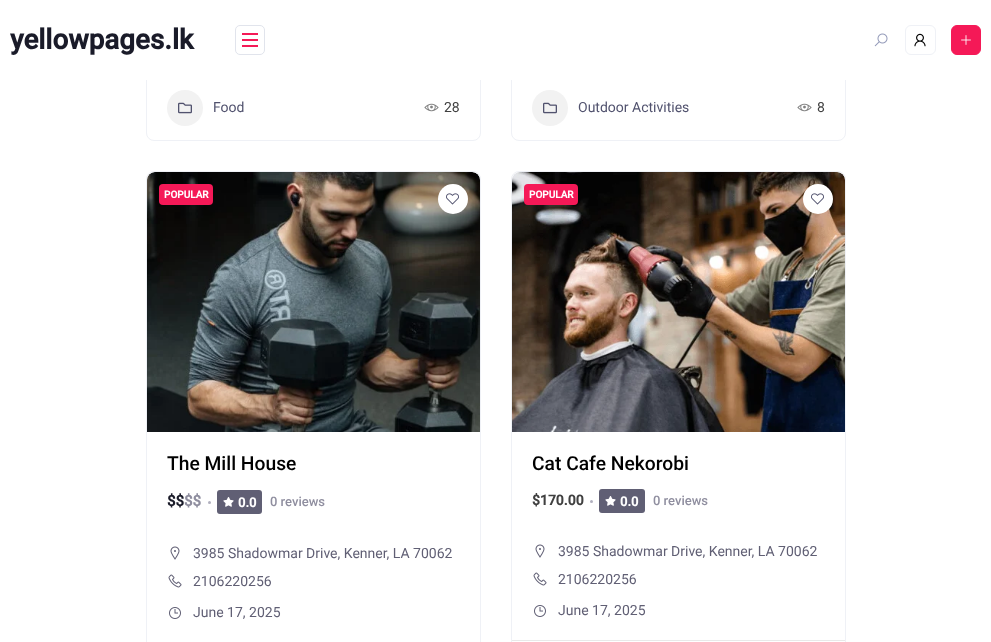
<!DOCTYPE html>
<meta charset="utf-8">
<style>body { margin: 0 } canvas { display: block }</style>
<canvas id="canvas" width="991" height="642"></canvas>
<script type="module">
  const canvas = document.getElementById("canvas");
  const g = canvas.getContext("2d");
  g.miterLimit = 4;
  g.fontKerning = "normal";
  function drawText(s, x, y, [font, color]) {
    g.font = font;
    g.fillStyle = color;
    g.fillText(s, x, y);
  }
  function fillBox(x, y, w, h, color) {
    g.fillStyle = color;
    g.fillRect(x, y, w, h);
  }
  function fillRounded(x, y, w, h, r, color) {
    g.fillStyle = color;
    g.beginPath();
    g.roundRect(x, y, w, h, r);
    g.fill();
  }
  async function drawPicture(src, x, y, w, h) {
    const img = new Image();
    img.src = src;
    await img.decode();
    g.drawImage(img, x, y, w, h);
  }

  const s1 = ["bold 27.75px Roboto", "#1A1B29"];
  const s2 = ["14px Roboto", "#51526E"];
  const s3 = ["14px Roboto", "#404040"];
  const s4 = ["bold 10px Roboto", "#FFFFFF"];
  const s5 = ["500 19.25px Roboto", "#000000"];
  const s6 = ["bold 15px Roboto", "#1A1B29"];
  const s7 = ["bold 15px Roboto", "#8F8E9F"];
  const s8 = ["bold 13px Roboto", "#FFFFFF"];
  const s9 = ["500 13px Roboto", "#8F8E9F"];
  const s10 = ["14px Roboto", "#605F74"];
  const s11 = ["bold 14px Roboto", "#404040"];

  fillBox(0, 0, 991, 642, "#FFFFFF");
  g.beginPath();
  g.roundRect(146.5, -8.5, 334, 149, 7.5);
  g.strokeStyle = "#EFF1F6";
  g.stroke();
  g.beginPath();
  g.roundRect(511.5, -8.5, 334, 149, 7.5);
  g.stroke();
  fillBox(146, 0, 700, 80, "#FFFFFF");
  drawText("yellowpages.lk", 10, 49, s1);
  g.beginPath();
  g.roundRect(235.5, 25.5, 29, 29, 4.5);
  g.strokeStyle = "#E1E4EC";
  g.stroke();
  fillBox(242, 33, 16, 2, "#F51957");
  fillBox(242, 39, 16, 2, "#F51957");
  fillBox(242, 45, 16, 2, "#F51957");
  await drawPicture("pic1.png", 874, 33, 14, 14);
  g.beginPath();
  g.roundRect(905.5, 25.5, 30, 29, 5.5);
  g.strokeStyle = "#EFF1F6";
  g.stroke();
  await drawPicture("pic2.png", 914, 33, 12, 14);
  g.beginPath();
  g.roundRect(951.5, 25.5, 29, 29, 5.5);
  g.fill();
  g.strokeStyle = "#F51957";
  g.stroke();
  await drawPicture("pic3.png", 961, 35, 10, 10);
  g.fillStyle = "#F2F2F2";
  g.beginPath();
  g.arc(185, 108, 18, 0, Math.PI * 2);
  g.fill();
  await drawPicture("pic4.png", 178, 102, 14, 12);
  drawText("Food", 213, 112, s2);
  await drawPicture("pic5.png", 424, 103, 15, 9);
  drawText("28", 444, 112, s3);
  g.fillStyle = "#F2F2F2";
  g.beginPath();
  g.arc(550, 108, 18, 0, Math.PI * 2);
  g.fill();
  await drawPicture("pic4.png", 543, 102, 14, 12);
  drawText("Outdoor Activities", 578, 112, s2);
  await drawPicture("pic5.png", 797, 103, 15, 9);
  drawText("8", 817, 112, s3);
  g.beginPath();
  g.roundRect(146.5, 171.5, 334, 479, 7.5);
  g.strokeStyle = "#EFF1F6";
  g.stroke();
  g.fillStyle = "#F4F4F4";
  g.beginPath();
  g.roundRect(147, 172, 333, 260, [8, 8, 0, 0]);
  g.fill();
  await drawPicture("pic6.png", 147, 172, 333, 260);
  fillRounded(159, 184, 54, 21, 4, "#F51957");
  drawText("POPULAR", 164, 198, s4);
  g.beginPath();
  g.arc(453, 199, 15, 0, Math.PI * 2);
  g.fill();
  await drawPicture("pic7.png", 446, 193, 13, 12);
  drawText("The Mill House", 167, 470, s5);
  drawText("$$", 167, 506, s6);
  drawText("$$", 184, 506, s7);
  g.fillStyle = "#B1B0BF";
  g.beginPath();
  g.arc(209.5, 502.5, 1.5, 0, Math.PI * 2);
  g.fill();
  fillRounded(217, 490, 45, 24, 3, "#605F74");
  await drawPicture("pic8.png", 223, 497, 11, 10);
  drawText("0.0", 238, 507, s8);
  drawText("0 reviews", 270, 506, s9);
  await drawPicture("pic9.png", 170, 546, 10, 14);
  drawText("3985 Shadowmar Drive, Kenner, LA 70062", 193, 558, s10);
  await drawPicture("pic10.png", 168, 574, 14, 14);
  drawText("2106220256", 193, 586, s10);
  await drawPicture("pic11.png", 169, 607, 12, 12);
  drawText("June 17, 2025", 193, 617, s10);
  g.beginPath();
  g.roundRect(511.5, 171.5, 334, 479, 7.5);
  g.stroke();
  g.fillStyle = "#F4F4F4";
  g.beginPath();
  g.roundRect(512, 172, 333, 260, [8, 8, 0, 0]);
  g.fill();
  await drawPicture("pic12.png", 512, 172, 333, 260);
  fillRounded(524, 184, 54, 21, 4, "#F51957");
  drawText("POPULAR", 529, 198, s4);
  g.beginPath();
  g.arc(818, 199, 15, 0, Math.PI * 2);
  g.fill();
  await drawPicture("pic7.png", 811, 193, 13, 12);
  drawText("Cat Cafe Nekorobi", 532, 470, s5);
  drawText("$170.00", 532, 505, s11);
  g.fillStyle = "#B1B0BF";
  g.beginPath();
  g.arc(591.5, 501.5, 1.5, 0, Math.PI * 2);
  g.fill();
  fillRounded(599, 489, 46, 24, 3, "#605F74");
  await drawPicture("pic8.png", 605, 496, 11, 10);
  drawText("0.0", 620, 506, s8);
  drawText("0 reviews", 653, 505, s9);
  await drawPicture("pic9.png", 535, 544, 10, 14);
  drawText("3985 Shadowmar Drive, Kenner, LA 70062", 558, 556, s10);
  await drawPicture("pic10.png", 533, 572, 14, 14);
  drawText("2106220256", 558, 584, s10);
  await drawPicture("pic11.png", 534, 605, 12, 12);
  drawText("June 17, 2025", 558, 615, s10);
  fillBox(512, 640, 333, 1, "#E9E9E9");
</script>
